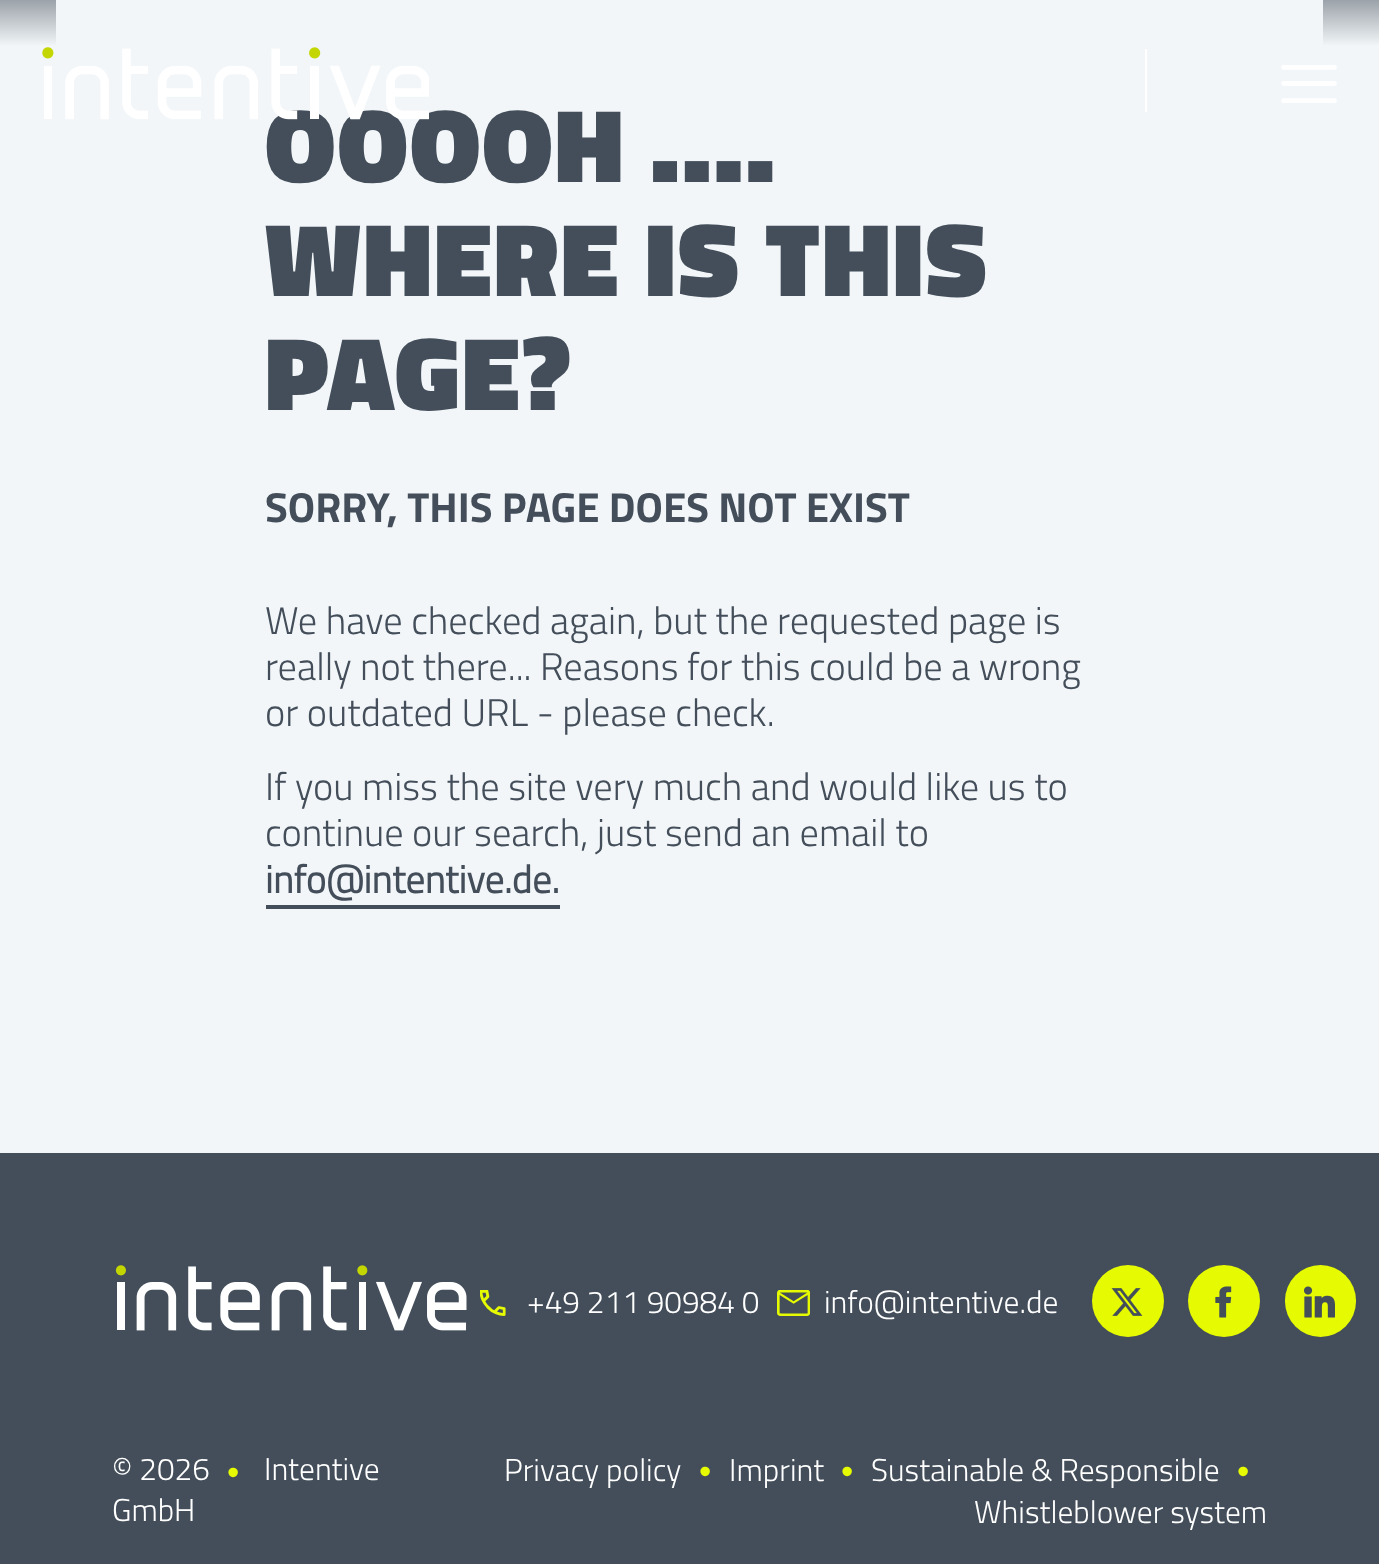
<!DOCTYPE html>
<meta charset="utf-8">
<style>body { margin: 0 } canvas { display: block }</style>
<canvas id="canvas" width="1379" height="1564"></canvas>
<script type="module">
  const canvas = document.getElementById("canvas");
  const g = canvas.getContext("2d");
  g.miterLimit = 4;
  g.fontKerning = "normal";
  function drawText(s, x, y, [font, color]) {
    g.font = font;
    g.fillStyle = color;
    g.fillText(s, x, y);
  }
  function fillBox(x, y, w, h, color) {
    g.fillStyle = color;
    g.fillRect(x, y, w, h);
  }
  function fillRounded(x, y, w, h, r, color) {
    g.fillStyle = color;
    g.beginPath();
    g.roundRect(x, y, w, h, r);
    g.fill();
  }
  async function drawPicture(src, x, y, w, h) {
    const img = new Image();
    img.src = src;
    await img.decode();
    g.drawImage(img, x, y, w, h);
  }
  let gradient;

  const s1 = ["900 105px Titillium Web", "#434E5A"];
  const s2 = ["bold 42px Titillium Web", "#434E5A"];
  const s3 = ["300 38.5px Titillium Web", "#434E5A"];
  const s4 = ["bold 38.5px 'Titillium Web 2'", "#434E5A"];
  const s5 = ["300 31.5px Titillium Web", "#FFFFFF"];
  const s6 = ["35px Liberation Sans", "#E6FB01"];

  fillBox(0, 0, 1379, 1564, "#F2F6F8");
  g.letterSpacing = "2.1px";
  drawText("OOOOH ....", 265, 182, s1);
  await drawPicture("pic1.png", 42, 47, 387, 73);
  fillBox(1145, 49, 2, 63, "#FFFFFF");
  await drawPicture("pic2.png", 1281, 65, 56, 38);
  gradient = g.createLinearGradient(690, 0, 690, 46);
  gradient.addColorStop(0, "#9BA2A9");
  gradient.addColorStop(1, "#F2F6F8");
  g.fillStyle = gradient;
  g.fillRect(0, 0, 1379, 45);
  fillBox(56, 0, 1267, 45, "#F2F6F8");
  drawText("WHERE IS THIS", 265, 296, s1);
  drawText("PAGE?", 265, 410, s1);
  g.letterSpacing = "0px";
  drawText("SORRY, THIS PAGE DOES NOT EXIST", 265, 522, s2);
  drawText("We have checked again, but the requested page is", 265, 634, s3);
  drawText("really not there... Reasons for this could be a wrong", 265, 680, s3);
  drawText("or outdated URL - please check.", 265, 726, s3);
  drawText("If you miss the site very much and would like us to", 265, 800, s3);
  drawText("continue our search, just send an email to", 265, 846, s3);
  drawText("info@intentive.de.", 265, 893, s4);
  fillBox(266, 905, 294, 4, "#434E5A");
  fillBox(0, 1153, 1379, 411, "#434E5A");
  await drawPicture("pic3.png", 115, 1265, 352, 66);
  await drawPicture("pic4.png", 480, 1290, 26, 26);
  drawText("+49 211 90984 0", 527, 1313, s5);
  await drawPicture("pic5.png", 777, 1290, 33, 26);
  drawText("info@intentive.de", 824, 1313, s5);
  g.fillStyle = "#E6FB01";
  g.beginPath();
  g.arc(1128, 1301, 36, 0, Math.PI * 2);
  g.fill();
  await drawPicture("pic6.png", 1111, 1288, 32, 28);
  g.beginPath();
  g.arc(1224, 1301, 36, 0, Math.PI * 2);
  g.fill();
  await drawPicture("pic7.png", 1215, 1286, 17, 32);
  fillRounded(1285, 1265, 71, 72, 35.5, "#E6FB01");
  await drawPicture("pic8.png", 1304, 1286, 31, 32);
  drawText("© 2026", 112, 1480, s5);
  drawText("•", 227, 1484, s6);
  drawText("Intentive", 264, 1480, s5);
  drawText("GmbH", 112, 1521, s5);
  drawText("Privacy policy", 504, 1481, s5);
  drawText("•", 699, 1483, s6);
  drawText("Imprint", 729, 1481, s5);
  drawText("•", 841, 1483, s6);
  drawText("Sustainable & Responsible", 871, 1481, s5);
  drawText("•", 1237, 1483, s6);
  drawText("Whistleblower system", 974, 1523, s5);
</script>
